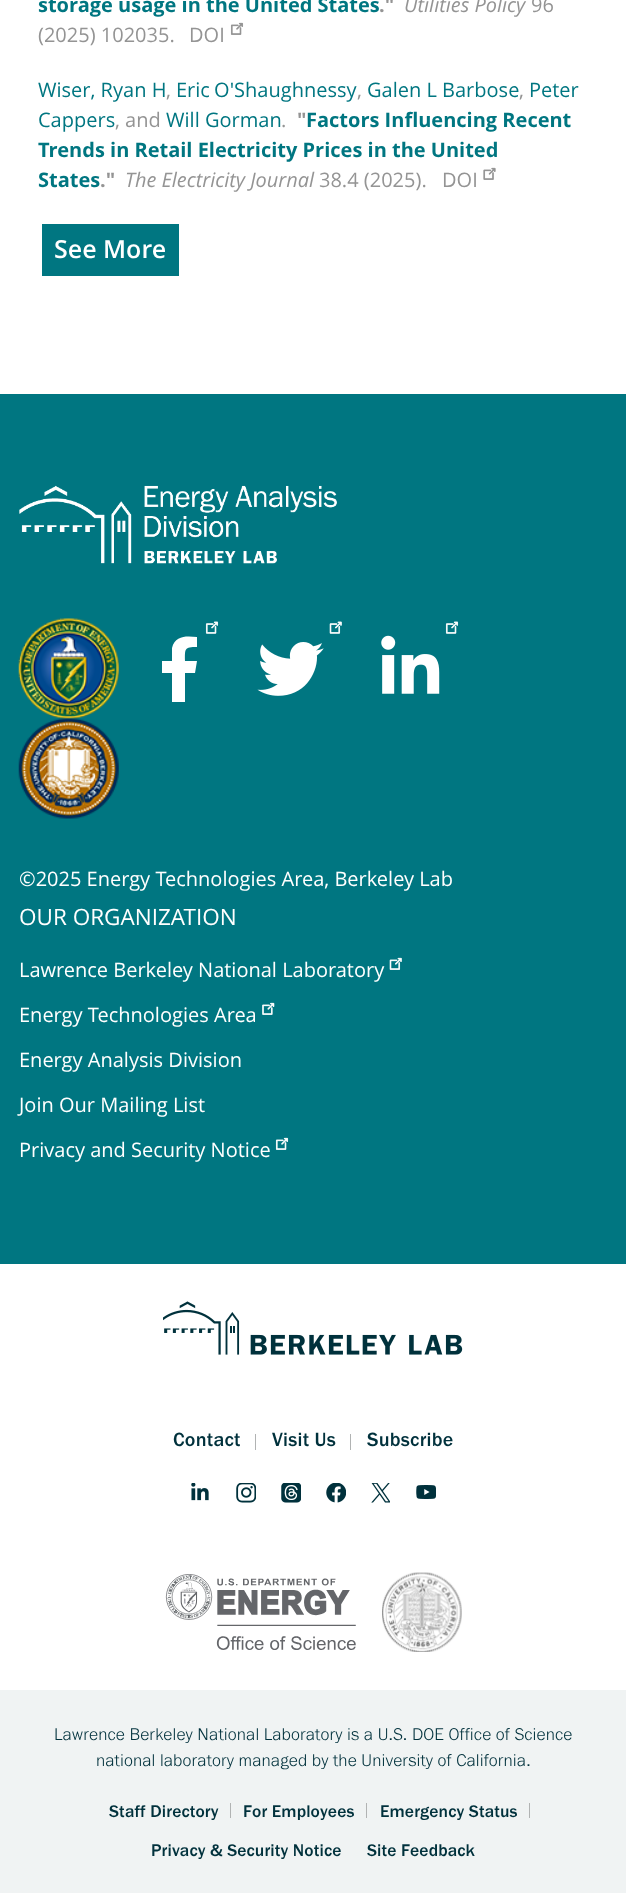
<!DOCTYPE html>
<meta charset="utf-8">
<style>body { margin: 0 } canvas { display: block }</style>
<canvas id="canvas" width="626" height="1893"></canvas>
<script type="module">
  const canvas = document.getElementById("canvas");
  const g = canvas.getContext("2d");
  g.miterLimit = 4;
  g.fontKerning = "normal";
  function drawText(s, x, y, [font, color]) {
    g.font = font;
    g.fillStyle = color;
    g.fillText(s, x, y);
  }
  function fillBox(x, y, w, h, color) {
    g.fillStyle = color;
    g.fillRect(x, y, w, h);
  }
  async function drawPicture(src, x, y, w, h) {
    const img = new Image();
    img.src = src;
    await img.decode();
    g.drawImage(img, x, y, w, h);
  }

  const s1 = ["bold 20px Open Sans", "#007681"];
  const s2 = ["bold 20px Open Sans", "#949494"];
  const s3 = ["italic 20px Open Sans", "#949494"];
  const s4 = ["20px Open Sans", "#949494"];
  const s5 = ["20px Open Sans", "#007681"];
  const s6 = ["600 25px Open Sans", "#FFFFFF"];
  const s7 = ["20px Open Sans", "#FFFFFF"];
  const s8 = ["22.5px Open Sans", "#FFFFFF"];
  const s9 = ["20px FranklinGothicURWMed", "#00313C"];
  const s10 = ["17.5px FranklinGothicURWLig", "#00313C"];
  const s11 = ["17.5px FranklinGothicURWMed", "#00313C"];

  fillBox(0, 0, 626, 1893, "#FFFFFF");
  drawText("storage usage in the United States", 38, 12, s1);
  drawText(".\"", 379, 12, s2);
  drawText("Utilities Policy", 404, 12, s3);
  drawText("96", 531, 12, s4);
  drawText("(2025) 102035.", 38, 42, s4);
  drawText("DOI", 189, 42, s4);
  await drawPicture("pic1.png", 230, 22, 14, 13);
  drawText("Wiser, Ryan H", 38, 97, s5);
  drawText(",", 166, 97, s4);
  g.wordSpacing = "-1px";
  drawText("Eric O'Shaughnessy", 176, 97, s5);
  g.wordSpacing = "0px";
  drawText(",", 357, 97, s4);
  drawText("Galen L Barbose", 367, 97, s5);
  drawText(",", 519, 97, s4);
  drawText("Peter", 529, 97, s5);
  drawText("Cappers", 38, 127, s5);
  drawText(", and", 115, 127, s4);
  drawText("Will Gorman", 166, 127, s5);
  drawText("\"", 297, 127, s2);
  drawText("Factors Influencing Recent", 306, 127, s1);
  drawText(".", 281, 127, s4);
  drawText("Trends in Retail Electricity Prices in the United", 38, 157, s1);
  drawText("States", 38, 187, s1);
  drawText(".\"", 100, 187, s2);
  drawText("The Electricity Journal", 125, 187, s3);
  drawText("38.4 (2025).", 319, 187, s4);
  drawText("DOI", 442, 187, s4);
  await drawPicture("pic2.png", 483, 167, 13, 13);
  fillBox(42, 224, 137, 52, "#007681");
  drawText("See More", 54, 258, s6);
  fillBox(0, 394, 626, 870, "#007681");
  await drawPicture("pic3.png", 19, 485, 318, 79);
  await drawPicture("pic4.png", 18, 618, 101, 101);
  await drawPicture("pic5.png", 18, 718, 101, 101);
  await drawPicture("pic6.png", 205, 621, 14, 13);
  g.fillStyle = "#FFFFFF";
  g.beginPath();
  g.moveTo(195, 673);
  g.lineTo(185, 673);
  g.lineTo(185, 702);
  g.lineTo(172, 702);
  g.lineTo(172, 673);
  g.lineTo(162, 673);
  g.lineTo(162, 661);
  g.lineTo(172, 661);
  g.lineTo(172, 648);
  g.bezierCurveTo(175, 635, 187, 636, 197, 637);
  g.lineTo(197, 647);
  g.bezierCurveTo(184, 647, 185, 649, 185, 661);
  g.lineTo(197, 661);
  g.closePath();
  g.fill();
  await drawPicture("pic7.png", 329, 621, 13, 13);
  await drawPicture("pic8.png", 257, 642, 67, 54);
  await drawPicture("pic6.png", 445, 621, 14, 13);
  await drawPicture("pic9.png", 381, 635, 59, 59);
  drawText("©2025 Energy Technologies Area, Berkeley Lab", 19, 886, s7);
  drawText("OUR ORGANIZATION", 19, 925, s8);
  drawText("Lawrence Berkeley National Laboratory", 19, 977, s7);
  await drawPicture("pic10.png", 389, 957, 13, 13);
  drawText("Energy Technologies Area", 19, 1022, s7);
  await drawPicture("pic11.png", 262, 1002, 13, 13);
  drawText("Energy Analysis Division", 19, 1067, s7);
  drawText("Join Our Mailing List", 19, 1112, s7);
  drawText("Privacy and Security Notice", 19, 1157, s7);
  await drawPicture("pic12.png", 275, 1137, 14, 13);
  await drawPicture("pic13.png", 163, 1301, 300, 54);
  g.letterSpacing = "0.25px";
  drawText("Contact", 173, 1446, s9);
  fillBox(255, 1434, 1, 16, "#B1B3B3");
  drawText("Visit Us", 272, 1446, s9);
  fillBox(350, 1434, 1, 16, "#B1B3B3");
  drawText("Subscribe", 367, 1446, s9);
  await drawPicture("pic14.png", 191, 1483, 18, 18);
  await drawPicture("pic15.png", 236, 1483, 20, 20);
  await drawPicture("pic16.png", 281, 1483, 20, 20);
  await drawPicture("pic17.png", 326, 1483, 20, 20);
  await drawPicture("pic18.png", 371, 1483, 19, 20);
  await drawPicture("pic19.png", 416, 1485, 20, 14);
  await drawPicture("pic20.png", 165, 1574, 191, 76);
  await drawPicture("pic21.png", 382, 1572, 80, 80);
  fillBox(0, 1690, 626, 203, "#F0F3F3");
  g.letterSpacing = "0.12px";
  drawText("Lawrence Berkeley National Laboratory is a U.S. DOE Office of Science", 54, 1740, s10);
  drawText("national laboratory managed by the University of California.", 96, 1766, s10);
  drawText("Staff Directory", 109, 1817, s11);
  fillBox(230, 1803, 1, 15, "#B1B3B3");
  drawText("For Employees", 243, 1817, s11);
  fillBox(366, 1803, 1, 15, "#B1B3B3");
  drawText("Emergency Status", 380, 1817, s11);
  fillBox(529, 1803, 1, 15, "#B1B3B3");
  drawText("Privacy & Security Notice", 151, 1856, s11);
  drawText("Site Feedback", 367, 1856, s11);
</script>
